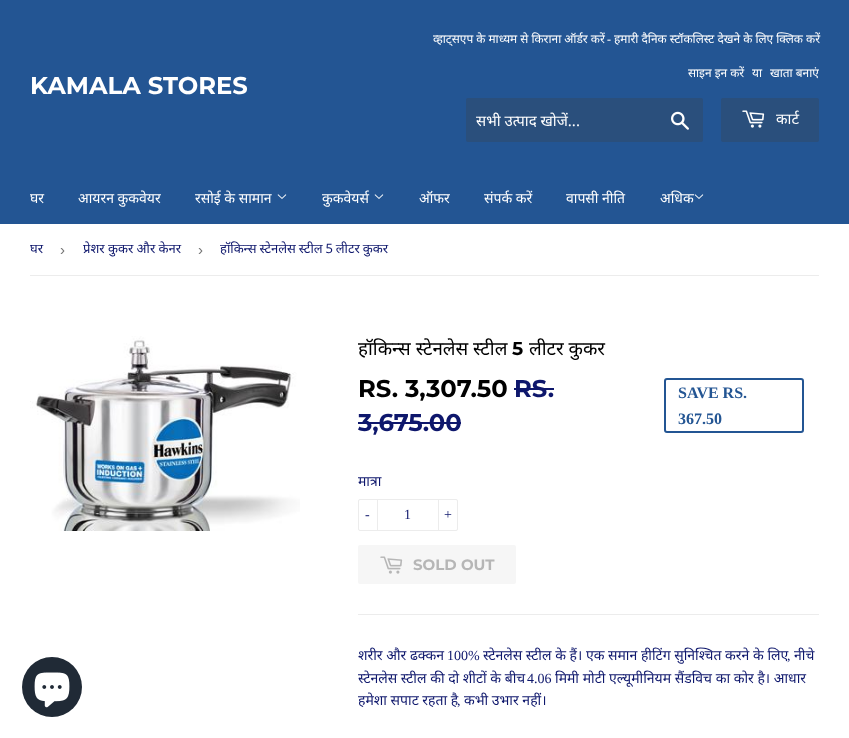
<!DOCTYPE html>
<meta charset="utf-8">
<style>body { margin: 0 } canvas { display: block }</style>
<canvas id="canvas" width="849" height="738"></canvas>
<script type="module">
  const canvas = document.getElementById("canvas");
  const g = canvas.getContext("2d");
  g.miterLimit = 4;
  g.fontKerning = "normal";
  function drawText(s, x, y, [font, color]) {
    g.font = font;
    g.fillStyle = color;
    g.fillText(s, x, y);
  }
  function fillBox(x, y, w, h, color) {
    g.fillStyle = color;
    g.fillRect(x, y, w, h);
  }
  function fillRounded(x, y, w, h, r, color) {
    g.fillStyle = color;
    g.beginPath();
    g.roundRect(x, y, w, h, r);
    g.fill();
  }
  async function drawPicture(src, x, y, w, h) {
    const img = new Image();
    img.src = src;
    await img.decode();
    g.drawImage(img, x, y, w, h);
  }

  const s1 = ["100 24.25px Montserrat", "#FFFFFF"];
  const s2 = ["11.9px Noto Sans", "#FFFFFF"];
  const s3 = ["bold 11.9px Liberation Serif", "#FFFFFF"];
  const s4 = ["15px Noto Sans", "#FFFFFF"];
  const s5 = ["14px Noto Sans", "#FFFFFF"];
  const s6 = ["13px Noto Sans", "#0E176C"];
  const s7 = ["15px Liberation Sans", "#767676"];
  const s8 = ["18.75px Noto Sans", "#000000"];
  const s9 = ["100 18.75px Montserrat", "#000000"];
  const s10 = ["100 24.25px Montserrat", "#000000"];
  const s11 = ["100 24.25px Montserrat", "#0E176C"];
  const s12 = ["bold 16px Liberation Serif", "#235593"];
  const s13 = ["14px Noto Sans", "#0E176C"];
  const s14 = ["14px Liberation Serif", "#0E176C"];
  const s15 = ["100 15px Montserrat", "#B6B6B6"];

  fillBox(0, 0, 849, 738, "#FFFFFF");
  fillBox(0, 0, 849, 224, "#235593");
  drawText("KAMALA STORES", 30, 94, s1);
  drawText("व्हाट्सएप के माध्यम से किराना ऑर्डर करें", 433, 43, s2);
  drawText("-", 607, 43, s3);
  drawText("हमारी दैनिक स्टॉकलिस्ट देखने के लिए क्लिक करें", 614, 43, s2);
  drawText("साइन इन करें", 688, 77, s2);
  drawText("या", 752, 77, s2);
  drawText("खाता बनाएं", 770, 77, s2);
  fillRounded(466, 98, 237, 44, 2, "#2A4F7C");
  drawText("सभी उत्पाद खोजें...", 476, 126, s4);
  await drawPicture("pic1.png", 671, 111, 18, 19);
  fillRounded(721, 98, 98, 44, 2, "#2A4F7C");
  await drawPicture("pic2.png", 742, 110, 23, 18);
  drawText("कार्ट", 776, 124, s4);
  drawText("घर", 30, 203, s5);
  drawText("आयरन कुकवेयर", 78, 203, s5);
  drawText("रसोई के सामान", 195, 203, s5);
  await drawPicture("pic3.png", 277, 194, 10, 5);
  drawText("कुकवेयर्स", 322, 203, s5);
  await drawPicture("pic3.png", 374, 194, 10, 5);
  drawText("ऑफर", 419, 203, s5);
  drawText("संपर्क करें", 484, 203, s5);
  drawText("वापसी नीति", 566, 203, s5);
  drawText("अधिक", 660, 203, s5);
  await drawPicture("pic3.png", 694, 194, 10, 5);
  fillBox(30, 275, 789, 1, "#ECECEC");
  drawText("घर", 30, 253, s6);
  drawText("›", 60, 255, s7);
  g.save();
  g.beginPath();
  g.rect(83, 224, 104, 51);
  g.clip();
  drawText("प्रेशर कुकर और केनर", 83, 253, s6);
  g.restore();
  drawText("›", 198, 255, s7);
  g.save();
  g.beginPath();
  g.rect(220, 224, 250, 51);
  g.clip();
  g.wordSpacing = "-0.5px";
  drawText("हॉकिन्स स्टेनलेस स्टील 5 लीटर कुकर", 220, 253, s6);
  g.restore();
  await drawPicture("pic4.png", 30, 336, 270, 195);
  drawText("हॉकिन्स स्टेनलेस स्टील", 358, 355, s8);
  drawText("5", 512, 355, s9);
  drawText("लीटर कुकर", 529, 355, s8);
  drawText("RS. 3,307.50", 358, 397, s10);
  drawText("RS.", 514, 397, s11);
  fillBox(514, 388, 40, 2, "#0E176C");
  drawText("3,675.00", 358, 431, s11);
  fillBox(358, 422, 103, 2, "#0E176C");
  g.beginPath();
  g.roundRect(665, 379, 138, 53, 2);
  g.strokeStyle = "#235593";
  g.lineWidth = 2;
  g.stroke();
  drawText("SAVE RS.", 678, 398, s12);
  drawText("367.50", 678, 424, s12);
  drawText("मात्रा", 358, 486, s13);
  g.beginPath();
  g.roundRect(358.5, 499.5, 99, 31, 1.5);
  g.strokeStyle = "#ECECEC";
  g.lineWidth = 1;
  g.stroke();
  fillBox(377, 499, 1, 32, "#ECECEC");
  drawText("-", 365, 519, s14);
  drawText("1", 404, 519, s14);
  fillBox(438, 499, 1, 32, "#ECECEC");
  drawText("+", 444, 519, s14);
  fillRounded(358, 545, 158, 39, 2, "#F6F6F6");
  await drawPicture("pic5.png", 380, 556, 23, 18);
  drawText("SOLD OUT", 413, 570, s15);
  fillBox(358, 614, 461, 1, "#ECECEC");
  drawText("शरीर और ढक्कन", 358, 660, s13);
  drawText("100%", 447, 660, s14);
  drawText("स्टेनलेस स्टील के हैं। एक समान हीटिंग सुनिश्चित करने के लिए", 483, 660, s13);
  drawText(",", 787, 660, s14);
  drawText("नीचे", 794, 660, s13);
  drawText("स्टेनलेस स्टील की दो शीटों के बीच", 358, 683, s13);
  drawText("4.06", 527, 683, s14);
  drawText("मिमी मोटी एल्यूमीनियम सैंडविच का कोर है। आधार", 555, 683, s13);
  drawText("हमेशा सपाट रहता है", 358, 705, s13);
  drawText(",", 457, 705, s14);
  drawText("कभी उभार नहीं।", 464, 705, s13);
  g.fillStyle = "#202A36";
  g.beginPath();
  g.arc(52, 687, 30, 0, Math.PI * 2);
  g.fill();
  await drawPicture("pic6.png", 34, 672, 36, 36);
</script>
